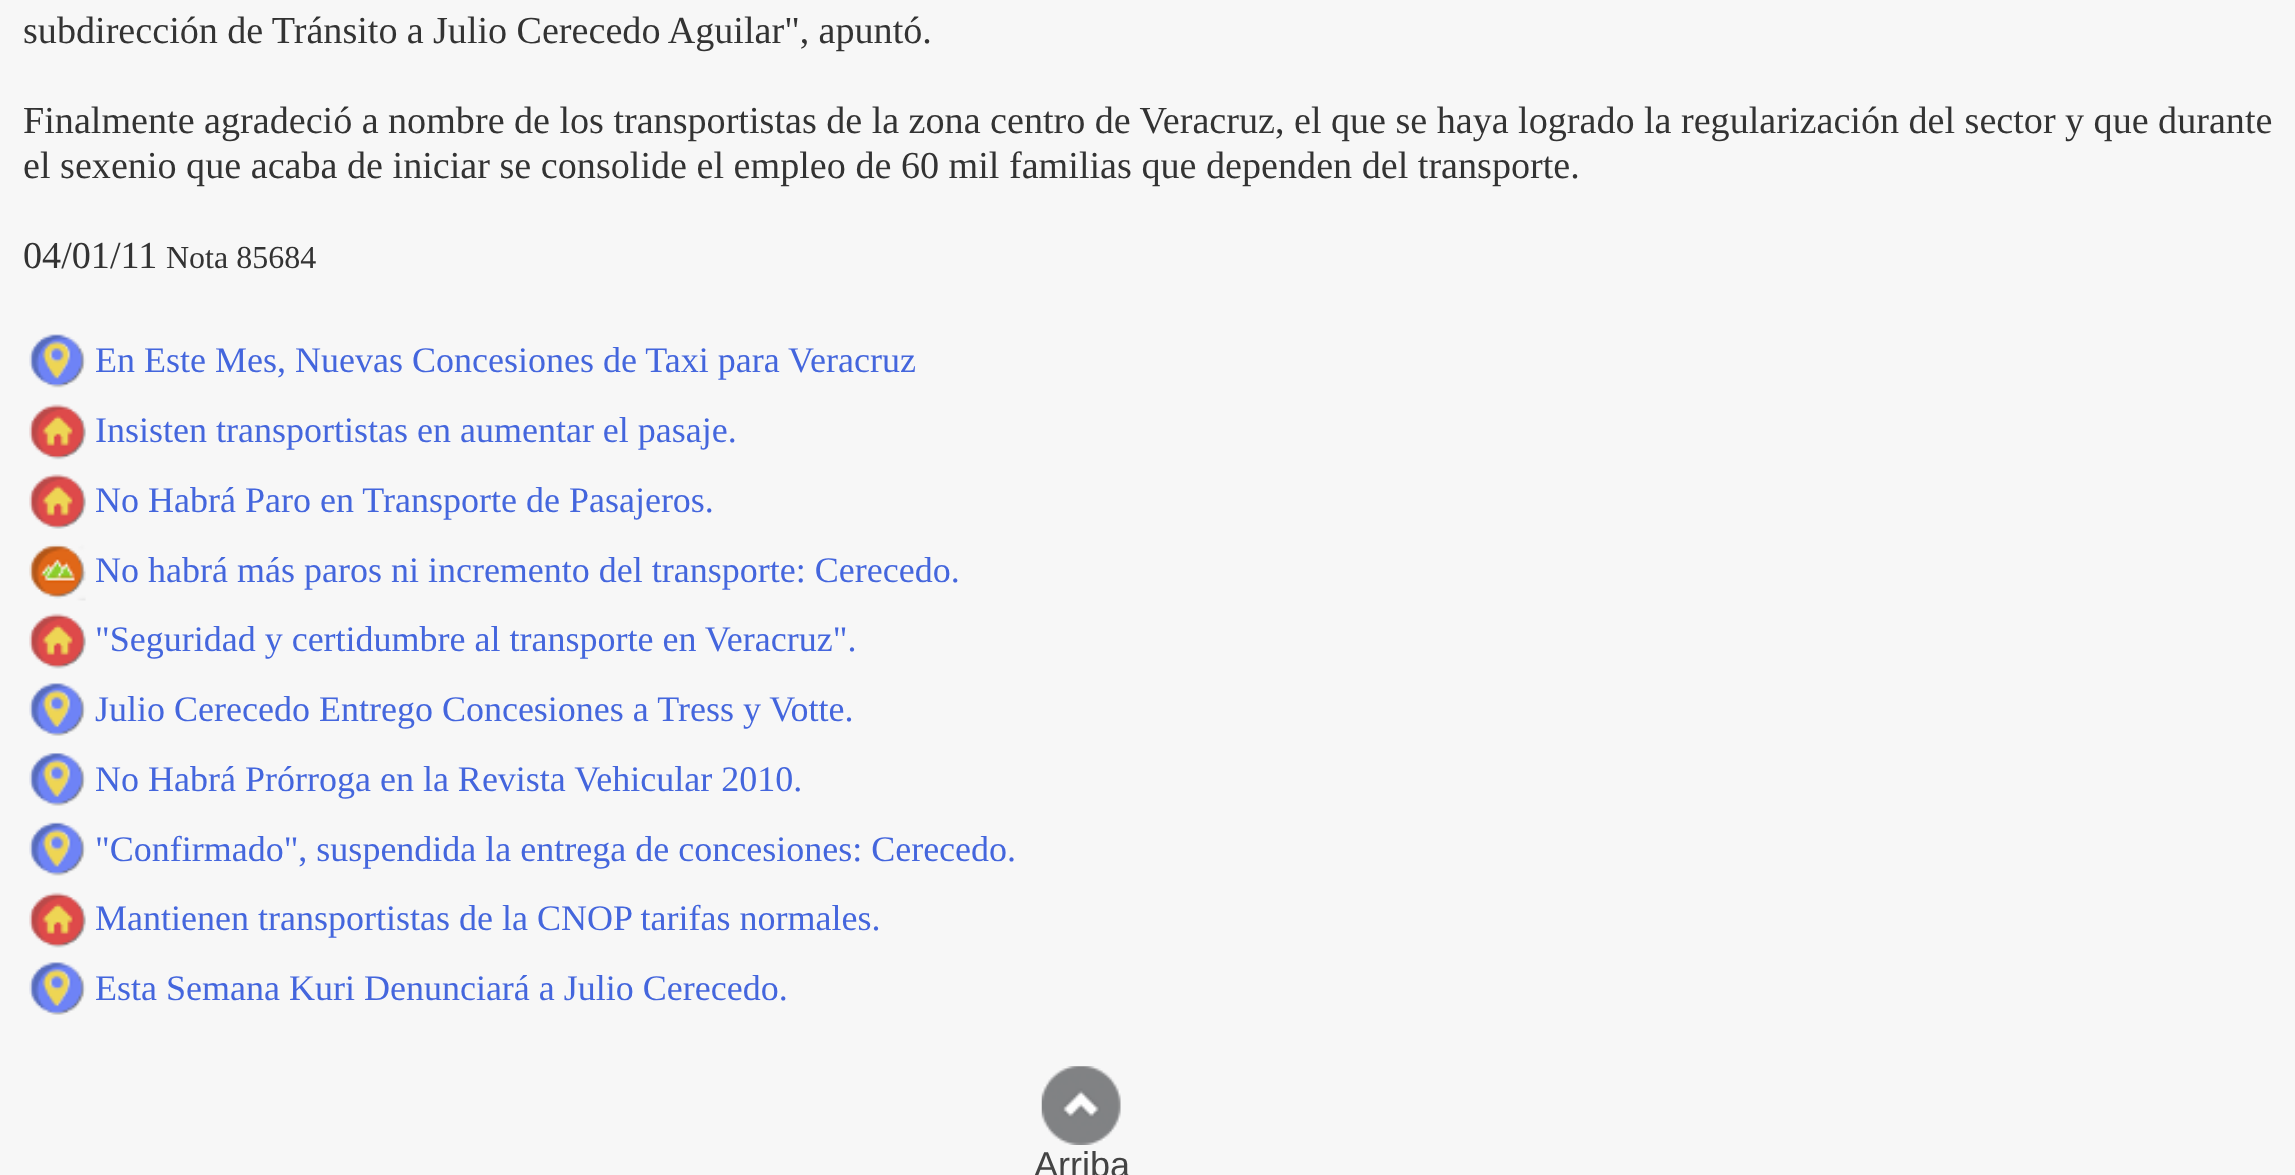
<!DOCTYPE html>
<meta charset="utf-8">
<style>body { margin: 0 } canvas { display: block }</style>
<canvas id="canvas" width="2295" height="1175"></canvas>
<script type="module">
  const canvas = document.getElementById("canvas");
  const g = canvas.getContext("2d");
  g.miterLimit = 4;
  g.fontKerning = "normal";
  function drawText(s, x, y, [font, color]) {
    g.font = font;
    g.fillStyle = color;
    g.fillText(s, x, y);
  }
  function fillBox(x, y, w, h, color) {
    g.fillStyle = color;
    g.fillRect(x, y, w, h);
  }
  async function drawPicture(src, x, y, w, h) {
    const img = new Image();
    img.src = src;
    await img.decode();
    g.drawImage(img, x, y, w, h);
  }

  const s1 = ["38.15px Liberation Serif", "#333333"];
  const s2 = ["32px Liberation Serif", "#333333"];
  const s3 = ["36px Liberation Serif", "#4466DD"];
  const s4 = ["36px Liberation Sans", "#444444"];

  fillBox(0, 0, 2295, 1175, "#F7F7F7");
  g.wordSpacing = "-0.25px";
  drawText("subdirección de Tránsito a Julio Cerecedo Aguilar\", apuntó.", 23, 43, s1);
  g.wordSpacing = "-0.1px";
  drawText("Finalmente agradeció a nombre de los transportistas de la zona centro de Veracruz, el que se haya logrado la regularización del sector y que durante", 23, 133, s1);
  g.wordSpacing = "0px";
  drawText("el sexenio que acaba de iniciar se consolide el empleo de 60 mil familias que dependen del transporte.", 23, 178, s1);
  drawText("04/01/11", 23, 268, s1);
  drawText("Nota 85684", 166, 268, s2);
  await drawPicture("pic1.png", 29, 334, 57, 54);
  drawText("En Este Mes, Nuevas Concesiones de Taxi para Veracruz", 95, 372, s3);
  await drawPicture("pic2.png", 29, 404, 57, 56);
  drawText("Insisten transportistas en aumentar el pasaje.", 95, 442, s3);
  await drawPicture("pic3.png", 29, 474, 57, 55);
  drawText("No Habrá Paro en Transporte de Pasajeros.", 95, 512, s3);
  await drawPicture("pic4.png", 29, 544, 57, 57);
  drawText("No habrá más paros ni incremento del transporte: Cerecedo.", 95, 582, s3);
  await drawPicture("pic5.png", 29, 613, 57, 56);
  drawText("\"Seguridad y certidumbre al transporte en Veracruz\".", 95, 651, s3);
  await drawPicture("pic6.png", 29, 683, 57, 53);
  drawText("Julio Cerecedo Entrego Concesiones a Tress y Votte.", 95, 721, s3);
  await drawPicture("pic7.png", 29, 753, 57, 53);
  drawText("No Habrá Prórroga en la Revista Vehicular 2010.", 95, 791, s3);
  await drawPicture("pic8.png", 29, 822, 57, 54);
  drawText("\"Confirmado\", suspendida la entrega de concesiones: Cerecedo.", 95, 861, s3);
  await drawPicture("pic5.png", 29, 892, 57, 56);
  drawText("Mantienen transportistas de la CNOP tarifas normales.", 95, 930, s3);
  await drawPicture("pic6.png", 29, 962, 57, 53);
  drawText("Esta Semana Kuri Denunciará a Julio Cerecedo.", 95, 1000, s3);
  await drawPicture("pic9.png", 1041, 1066, 80, 79);
  drawText("Arriba", 1034, 1177, s4);
</script>
